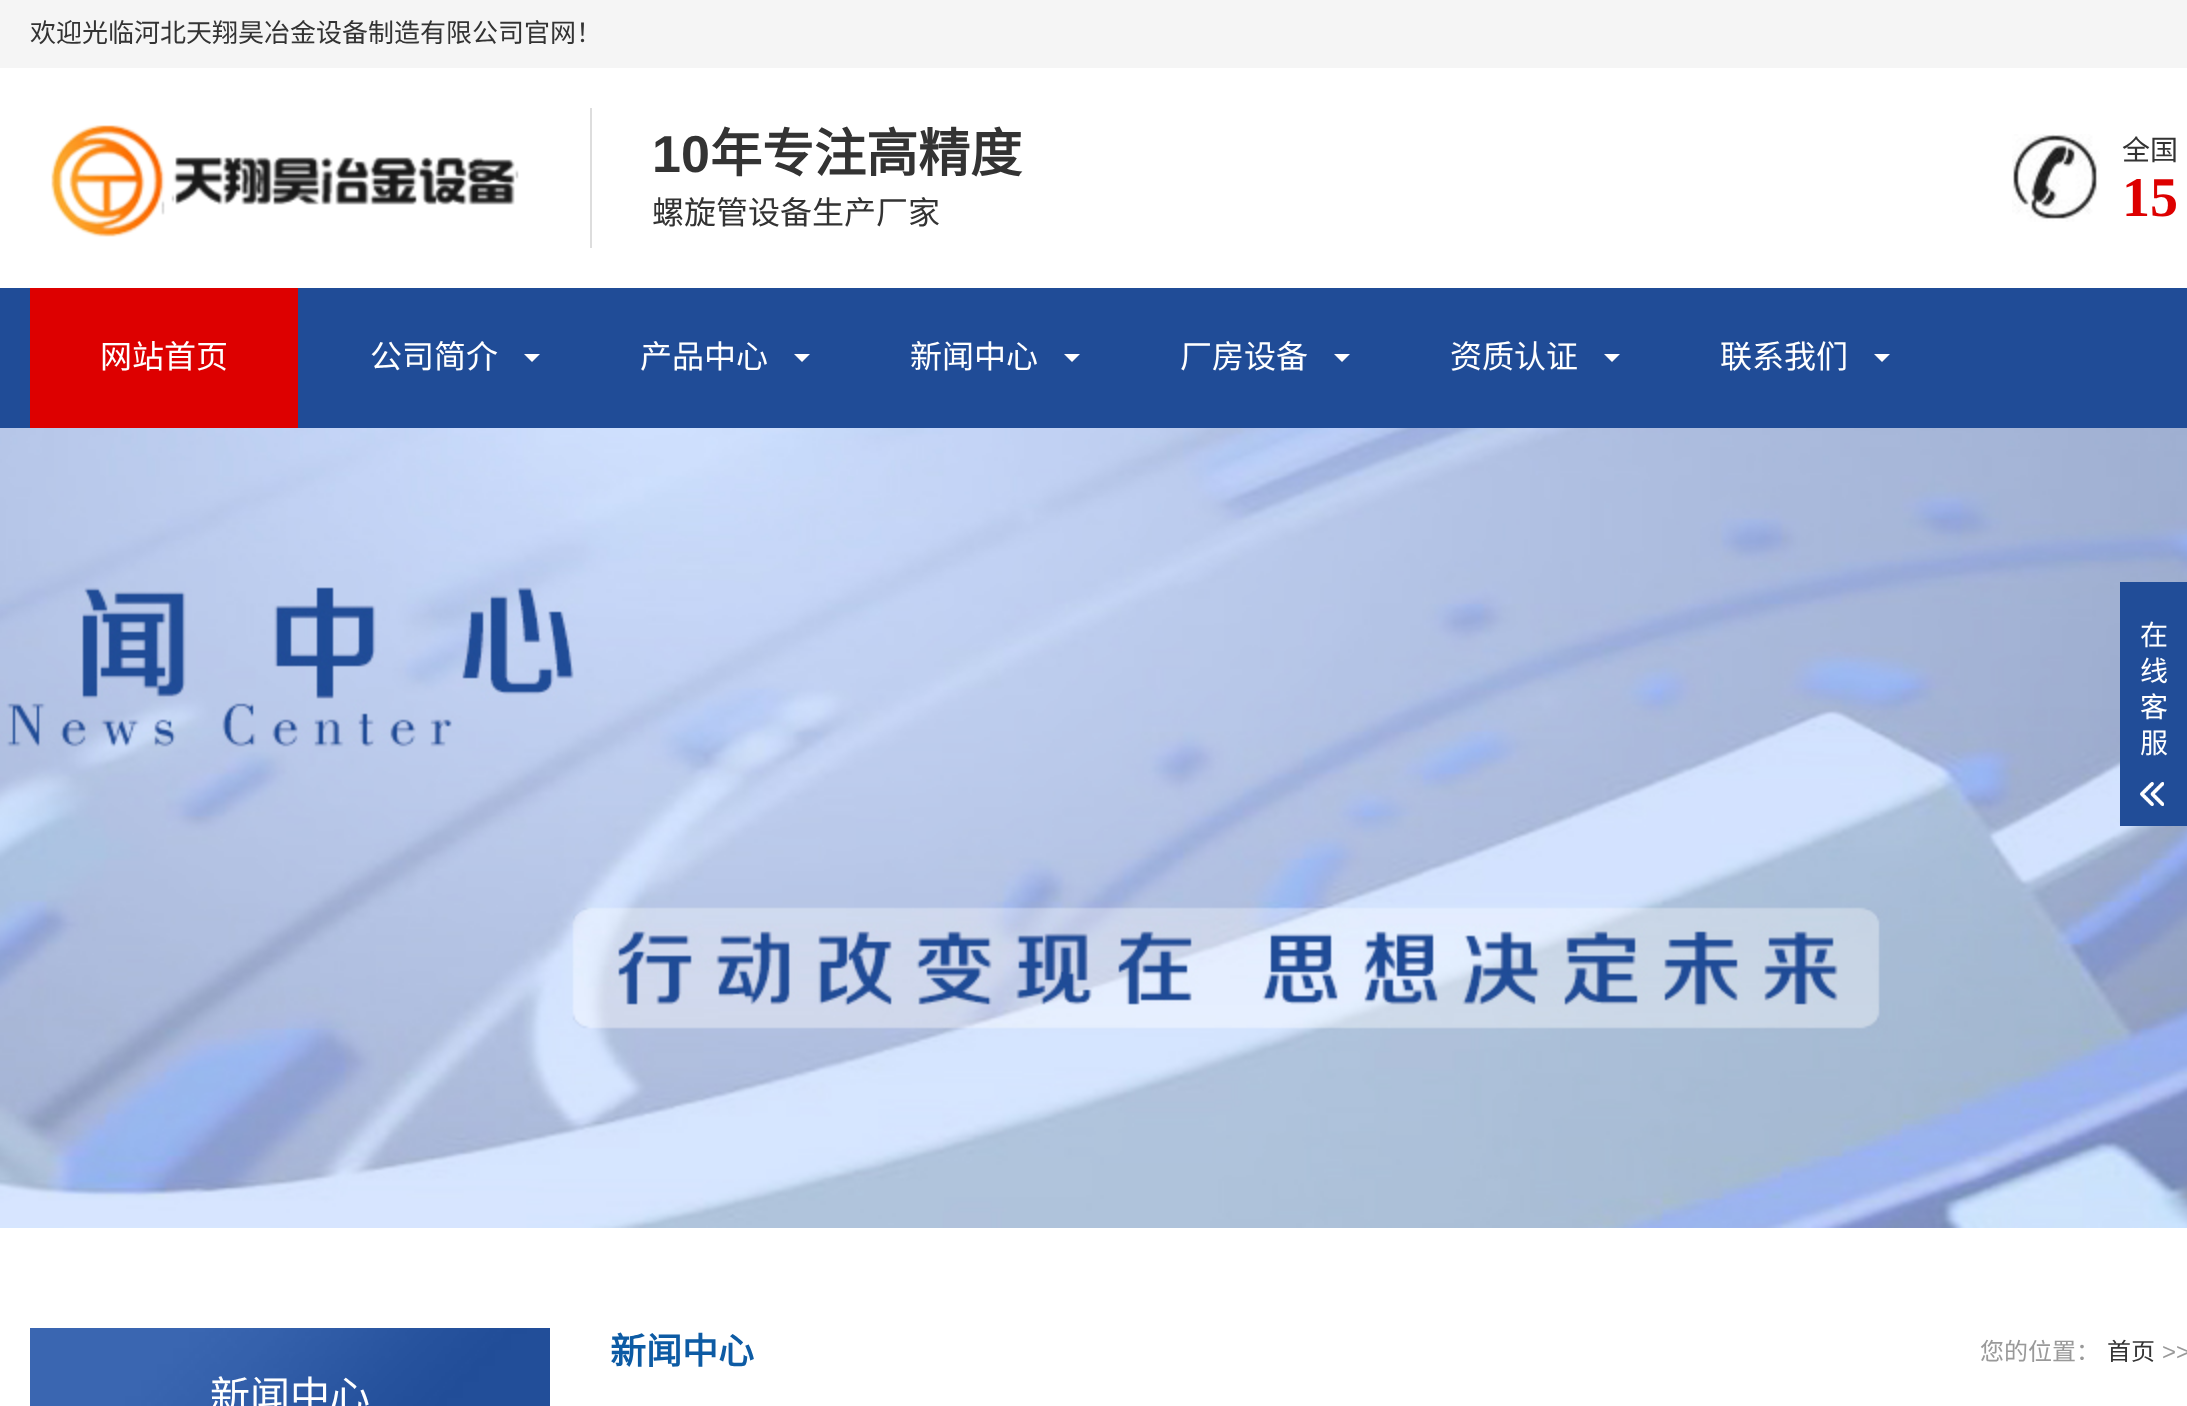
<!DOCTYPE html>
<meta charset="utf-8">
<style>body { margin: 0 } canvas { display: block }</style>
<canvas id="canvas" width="2187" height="1406"></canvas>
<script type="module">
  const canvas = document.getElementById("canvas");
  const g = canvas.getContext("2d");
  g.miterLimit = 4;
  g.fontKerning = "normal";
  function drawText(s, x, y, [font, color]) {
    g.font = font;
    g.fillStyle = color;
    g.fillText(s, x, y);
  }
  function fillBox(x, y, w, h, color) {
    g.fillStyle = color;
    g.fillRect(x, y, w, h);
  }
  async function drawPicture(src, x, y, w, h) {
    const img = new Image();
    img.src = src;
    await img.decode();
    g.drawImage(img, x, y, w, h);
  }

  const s1 = ["26px Noto Sans CJK SC", "#333333"];
  const s2 = ["bold 52px Liberation Sans", "#333333"];
  const s3 = ["bold 52px Noto Sans CJK SC", "#333333"];
  const s4 = ["32px Noto Sans CJK SC", "#333333"];
  const s5 = ["28px Noto Sans CJK SC", "#333333"];
  const s6 = ["bold 56px Liberation Serif", "#DD0000"];
  const s7 = ["32px Noto Sans CJK SC", "#FFFFFF"];
  const s8 = ["28px Noto Sans CJK SC", "#FFFFFF"];
  const s9 = ["bold 36px Noto Sans CJK SC", "#0D5BA4"];
  const s10 = ["24px Noto Sans CJK SC", "#999999"];
  const s11 = ["24px Noto Sans CJK SC", "#333333"];
  const s12 = ["24px Liberation Sans", "#999999"];
  const s13 = ["40px Noto Sans CJK SC", "#FFFFFF"];

  fillBox(0, 0, 2187, 1406, "#FFFFFF");
  fillBox(0, 0, 2187, 68, "#F5F5F5");
  drawText("欢迎光临河北天翔昊冶金设备制造有限公司官网！", 30, 42, s1);
  await drawPicture("pic1.png", 51, 125, 468, 112);
  fillBox(590, 108, 2, 140, "#DDDDDD");
  drawText("10", 652, 172, s2);
  drawText("年专注高精度", 710, 172, s3);
  drawText("螺旋管设备生产厂家", 652, 224, s4);
  await drawPicture("pic2.png", 2012, 134, 88, 88);
  drawText("全国", 2122, 160, s5);
  drawText("15", 2122, 216, s6);
  fillBox(0, 288, 2187, 140, "#204C97");
  fillBox(30, 288, 268, 140, "#DD0000");
  drawText("网站首页", 100, 368, s7);
  drawText("公司简介", 370, 368, s7);
  g.beginPath();
  g.moveTo(524, 354);
  g.lineTo(540, 354);
  g.lineTo(532, 362);
  g.closePath();
  g.fill();
  drawText("产品中心", 640, 368, s7);
  g.beginPath();
  g.moveTo(794, 354);
  g.lineTo(810, 354);
  g.lineTo(802, 362);
  g.closePath();
  g.fill();
  drawText("新闻中心", 910, 368, s7);
  g.beginPath();
  g.moveTo(1064, 354);
  g.lineTo(1080, 354);
  g.lineTo(1072, 362);
  g.closePath();
  g.fill();
  drawText("厂房设备", 1180, 368, s7);
  g.beginPath();
  g.moveTo(1334, 354);
  g.lineTo(1350, 354);
  g.lineTo(1342, 362);
  g.closePath();
  g.fill();
  drawText("资质认证", 1450, 368, s7);
  g.beginPath();
  g.moveTo(1604, 354);
  g.lineTo(1620, 354);
  g.lineTo(1612, 362);
  g.closePath();
  g.fill();
  drawText("联系我们", 1720, 368, s7);
  g.beginPath();
  g.moveTo(1874, 354);
  g.lineTo(1890, 354);
  g.lineTo(1882, 362);
  g.closePath();
  g.fill();
  await drawPicture("pic3.png", 0, 428, 2187, 800);
  fillBox(2120, 582, 67, 244, "#214D98");
  drawText("在", 2140, 645, s8);
  drawText("线", 2140, 681, s8);
  drawText("客", 2140, 717, s8);
  drawText("服", 2140, 753, s8);
  await drawPicture("pic4.png", 2140, 782, 24, 24);
  drawText("新闻中心", 610, 1364, s9);
  drawText("您的位置：", 1980, 1360, s10);
  drawText("首页", 2107, 1360, s11);
  drawText(">>", 2162, 1360, s12);
  await drawPicture("pic5.png", 30, 1328, 520, 78);
  drawText("新闻中心", 210, 1410, s13);
</script>
